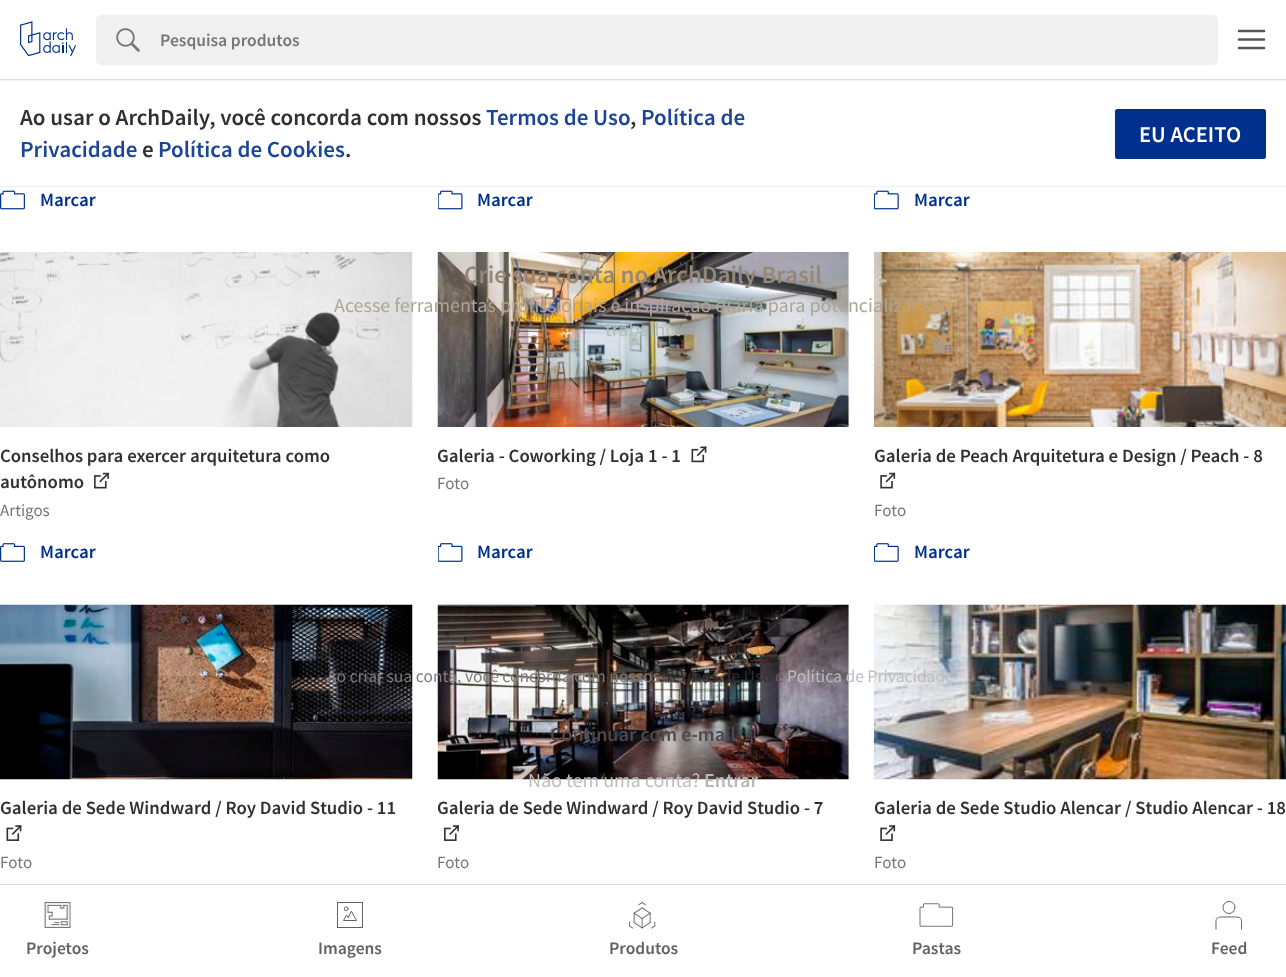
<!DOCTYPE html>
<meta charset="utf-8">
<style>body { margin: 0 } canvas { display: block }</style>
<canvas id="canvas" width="1286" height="977"></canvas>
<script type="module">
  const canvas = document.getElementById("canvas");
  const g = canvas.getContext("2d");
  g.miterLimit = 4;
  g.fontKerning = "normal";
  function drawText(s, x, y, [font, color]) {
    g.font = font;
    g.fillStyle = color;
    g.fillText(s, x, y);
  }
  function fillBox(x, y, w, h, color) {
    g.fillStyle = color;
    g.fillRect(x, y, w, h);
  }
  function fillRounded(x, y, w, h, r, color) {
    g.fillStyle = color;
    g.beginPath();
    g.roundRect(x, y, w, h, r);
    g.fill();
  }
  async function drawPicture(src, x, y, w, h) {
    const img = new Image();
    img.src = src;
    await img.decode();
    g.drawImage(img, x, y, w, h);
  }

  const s1 = ["600 17.5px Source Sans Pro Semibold", "#767676"];
  const s2 = ["600 23px Source Sans Pro Semibold", "#303030"];
  const s3 = ["600 23px Source Sans Pro Semibold", "#1A4599"];
  const s4 = ["600 22.5px Source Sans Pro Semibold", "#FFFFFF"];
  const s5 = ["600 18.75px Source Sans Pro Semibold", "#00308E"];
  const s6 = ["600 18.75px Source Sans Pro Semibold", "#303030"];
  const s7 = ["17px Source Sans Pro", "#767676"];
  const s8 = ["600 25px Source Sans Pro Semibold", "#968875"];
  const s9 = ["20px Source Sans Pro", "#AEA496"];
  const s10 = ["20px Source Sans Pro", "#B4BDBB"];
  const s11 = ["17.5px Source Sans Pro", "#7F7B7A"];
  const s12 = ["17.5px Source Sans Pro", "#303030"];
  const s13 = ["17.5px Source Sans Pro", "#655863"];
  const s14 = ["17.5px Source Sans Pro", "#BEBCC2"];
  const s15 = ["600 20px Source Sans Pro Semibold", "#4E484A"];
  const s16 = ["20px Source Sans Pro", "#C0BCBC"];
  const s17 = ["600 20px Source Sans Pro Semibold", "#BBB6B5"];
  const s18 = ["600 17.5px Source Sans Pro Semibold", "#626262"];

  fillBox(0, 0, 1286, 977, "#FFFFFF");
  fillBox(0, 79, 1286, 1, "#E1E1E1");
  await drawPicture("pic1.png", 20, 21, 56, 35);
  fillRounded(96, 15, 1122, 50, 5, "#F0F0F0");
  await drawPicture("pic2.png", 116, 28, 24, 24);
  g.beginPath();
  g.roundRect(160, 15, 1058, 50, [0, 5, 5, 0]);
  g.fill();
  drawText("Pesquisa produtos", 160, 46, s1);
  g.beginPath();
  g.moveTo(1239, 31);
  g.lineTo(1264, 31);
  g.moveTo(1239, 39.5);
  g.lineTo(1264, 39.5);
  g.moveTo(1239, 48);
  g.lineTo(1264, 48);
  g.strokeStyle = "#565656";
  g.lineWidth = 2.5;
  g.lineCap = "round";
  g.stroke();
  fillBox(0, 80, 1286, 1, "#F1F1F1");
  fillBox(0, 186, 1286, 1, "#F1F1F1");
  drawText("Ao usar o ArchDaily, você concorda com nossos", 20, 125, s2);
  drawText("Termos de Uso", 486, 125, s3);
  drawText(",", 630, 125, s2);
  drawText("Política de", 641, 125, s3);
  drawText("Privacidade", 20, 157, s3);
  drawText("e", 142, 157, s2);
  drawText("Política de Cookies", 158, 157, s3);
  drawText(".", 345, 157, s2);
  fillRounded(1115, 109, 151, 50, 2.5, "#00308E");
  drawText("EU ACEITO", 1139, 142, s4);
  await drawPicture("pic3.png", 0, 190, 25, 20);
  drawText("Marcar", 40, 206, s5);
  await drawPicture("pic4.png", 438, 190, 25, 20);
  drawText("Marcar", 477, 206, s5);
  await drawPicture("pic5.png", 874, 190, 25, 20);
  drawText("Marcar", 914, 206, s5);
  await drawPicture("pic6.png", 0, 252, 413, 175);
  drawText("Conselhos para exercer arquitetura como", 0, 462, s6);
  drawText("autônomo", 0, 488, s6);
  await drawPicture("pic7.png", 94, 472, 15, 17);
  drawText("Artigos", 0, 516, s7);
  await drawPicture("pic8.png", 0, 543, 25, 19);
  drawText("Marcar", 40, 558, s5);
  await drawPicture("pic9.png", 437, 252, 412, 175);
  drawText("Galeria - Coworking / Loja 1 - 1", 437, 462, s6);
  await drawPicture("pic10.png", 691, 446, 16, 17);
  drawText("Foto", 437, 489, s7);
  await drawPicture("pic11.png", 438, 543, 25, 19);
  drawText("Marcar", 477, 558, s5);
  await drawPicture("pic12.png", 873, 252, 413, 175);
  drawText("Galeria de Peach Arquitetura e Design / Peach - 8", 874, 462, s6);
  await drawPicture("pic13.png", 880, 472, 16, 17);
  drawText("Foto", 874, 516, s7);
  await drawPicture("pic14.png", 874, 543, 25, 19);
  drawText("Marcar", 914, 558, s5);
  await drawPicture("pic15.png", 0, 604, 413, 176);
  drawText("Galeria de Sede Windward / Roy David Studio - 11", 0, 814, s6);
  await drawPicture("pic16.png", 6, 825, 16, 16);
  drawText("Foto", 0, 868, s7);
  await drawPicture("pic17.png", 437, 604, 412, 176);
  drawText("Galeria de Sede Windward / Roy David Studio - 7", 437, 814, s6);
  await drawPicture("pic18.png", 444, 825, 15, 16);
  drawText("Foto", 437, 868, s7);
  await drawPicture("pic19.png", 873, 604, 413, 176);
  drawText("Galeria de Sede Studio Alencar / Studio Alencar - 18", 874, 814, s6);
  await drawPicture("pic20.png", 880, 825, 16, 16);
  drawText("Foto", 874, 868, s7);
  drawText("Crie sua conta no ArchDaily Brasil", 464, 283, s8);
  drawText("Acesse ferramentas profissionais e inspiração diária para potencializar seu", 334, 312, s9);
  drawText("trabalho.", 605, 336, s10);
  drawText("Ao criar sua conta, você concorda com nossos", 327, 682, s11);
  drawText("Termos de Uso", 664, 682, s12);
  drawText("e", 775, 682, s13);
  drawText("Política de Privacidade", 787, 682, s14);
  drawText("Continuar com e-mail", 550, 741, s15);
  drawText("Não tem uma conta?", 528, 787, s16);
  drawText("Entrar", 704, 787, s17);
  fillBox(0, 884, 1286, 1, "#E1E1E1");
  await drawPicture("pic21.png", 43, 902, 28, 26);
  drawText("Projetos", 26, 954, s18);
  g.strokeStyle = "#626262";
  g.lineWidth = 1;
  g.strokeRect(337.5, 902.5, 25, 25);
  g.beginPath();
  g.moveTo(351.5, 911.5);
  g.lineTo(356.5, 920.5);
  g.lineTo(343.5, 920.5);
  g.lineTo(346.5, 915);
  g.lineTo(348, 917.5);
  g.closePath();
  g.stroke();
  g.beginPath();
  g.arc(346.2, 908.8, 1.9, 0, Math.PI * 2);
  g.stroke();
  drawText("Imagens", 318, 954, s18);
  await drawPicture("pic22.png", 629, 902, 27, 27);
  drawText("Produtos", 609, 954, s18);
  await drawPicture("pic23.png", 919, 903, 35, 24);
  drawText("Pastas", 912, 954, s18);
  g.beginPath();
  g.arc(1229, 907.5, 6, 0, Math.PI * 2);
  g.stroke();
  g.beginPath();
  g.moveTo(1241.5, 929);
  g.bezierCurveTo(1241.5, 916, 1243, 917, 1229, 917);
  g.bezierCurveTo(1214.5, 917, 1216, 916, 1216, 929);
  g.lineCap = "square";
  g.stroke();
  drawText("Feed", 1211, 954, s18);
</script>
